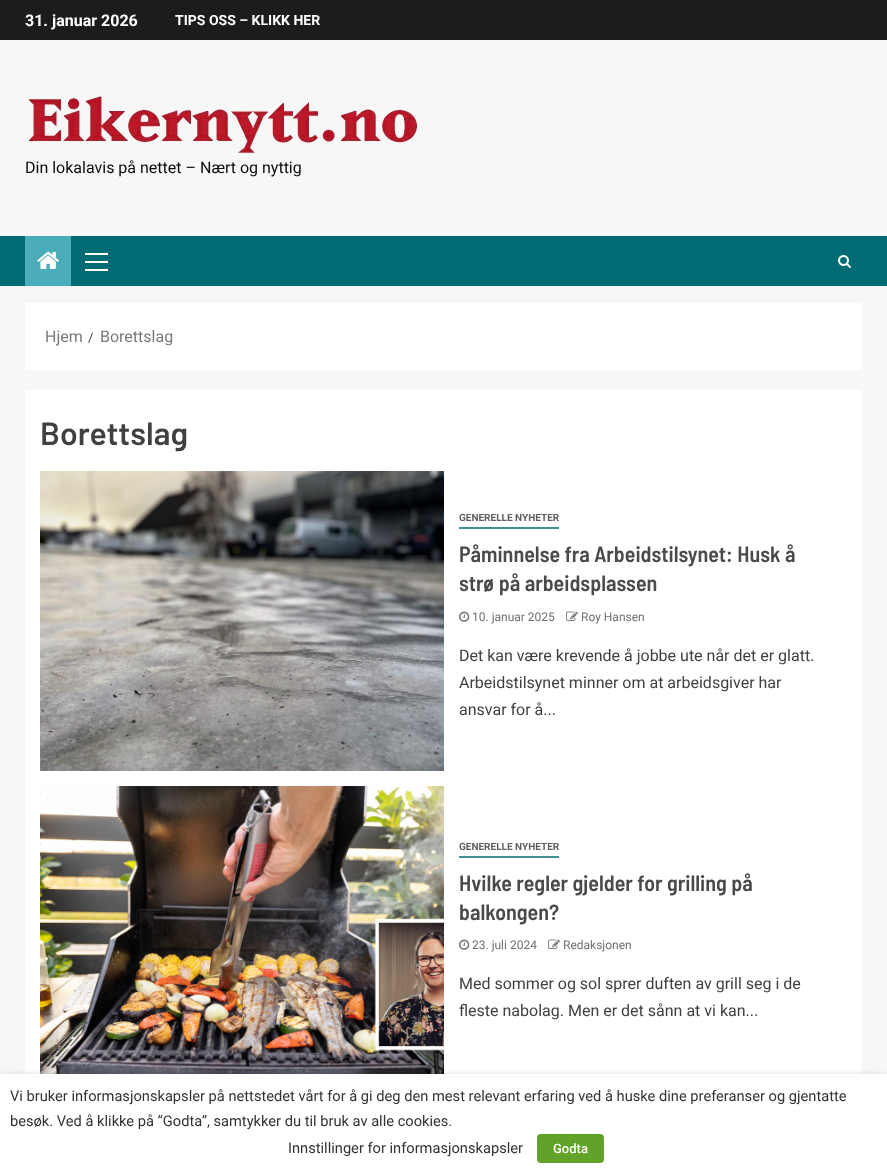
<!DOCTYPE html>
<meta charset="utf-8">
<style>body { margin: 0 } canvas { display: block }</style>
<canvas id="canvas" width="887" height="1173"></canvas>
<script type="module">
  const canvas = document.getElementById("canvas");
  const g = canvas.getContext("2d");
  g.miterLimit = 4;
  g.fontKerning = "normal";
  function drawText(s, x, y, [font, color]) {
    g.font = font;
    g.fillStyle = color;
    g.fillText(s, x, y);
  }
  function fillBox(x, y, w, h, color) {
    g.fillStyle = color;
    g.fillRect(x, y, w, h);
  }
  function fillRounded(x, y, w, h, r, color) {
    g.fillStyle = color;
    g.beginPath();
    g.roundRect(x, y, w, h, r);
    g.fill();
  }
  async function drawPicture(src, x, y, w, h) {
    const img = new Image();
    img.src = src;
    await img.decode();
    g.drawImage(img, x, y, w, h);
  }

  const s1 = ["bold 16px Roboto", "#FFFFFF"];
  const s2 = ["bold 14px Roboto", "#FFFFFF"];
  const s3 = ["16px Roboto", "#0A0A0A"];
  const s4 = ["16px Roboto", "#797979"];
  const s5 = ["13px Roboto", "#393E46"];
  const s6 = ["600 32px Barlow", "#404040"];
  const s7 = ["bold 10px Roboto", "#606060"];
  const s8 = ["600 22px Barlow Semi Condensed", "#4A4A4A"];
  const s9 = ["12px Roboto", "#707070"];
  const s10 = ["16px Roboto", "#404040"];
  const s11 = ["14.67px Roboto", "#333333"];
  const s12 = ["500 13px Roboto", "#FFFFFF"];

  fillBox(0, 0, 887, 1173, "#F7F7F7");
  fillBox(0, 0, 887, 40, "#1C1C1C");
  drawText("31. januar 2026", 25, 26, s1);
  drawText("TIPS OSS – KLIKK HER", 175, 25, s2);
  await drawPicture("pic1.png", 29, 96, 388, 58);
  drawText("Din lokalavis på nettet – Nært og nyttig", 25, 173, s3);
  fillBox(0, 236, 887, 50, "#006B73");
  fillBox(25, 236, 46, 50, "#4AABB9");
  await drawPicture("pic2.png", 37, 251, 22, 18);
  fillBox(85, 261, 23, 2, "#FFFFFF");
  fillBox(85, 253, 23, 2, "#FFFFFF");
  fillBox(85, 269, 23, 2, "#FFFFFF");
  await drawPicture("pic3.png", 838, 255, 13, 13);
  fillBox(25, 303, 837, 67, "#FFFFFF");
  drawText("Hjem", 45, 342, s4);
  drawText("/", 88, 342, s5);
  drawText("Borettslag", 100, 342, s4);
  fillBox(25, 390, 837, 684, "#FFFFFF");
  drawText("Borettslag", 40, 445, s6);
  await drawPicture("pic4.png", 40, 471, 404, 300);
  fillBox(459, 527, 100, 2, "#409096");
  drawText("GENERELLE NYHETER", 459, 521, s7);
  drawText("Påminnelse fra Arbeidstilsynet: Husk å", 459, 562, s8);
  drawText("strø på arbeidsplassen", 459, 591, s8);
  await drawPicture("pic5.png", 459, 611, 11, 11);
  drawText("10. januar 2025", 472, 621, s9);
  await drawPicture("pic6.png", 566, 611, 12, 10);
  drawText("Roy Hansen", 581, 621, s9);
  drawText("Det kan være krevende å jobbe ute når det er glatt.", 459, 661, s10);
  drawText("Arbeidstilsynet minner om at arbeidsgiver har", 459, 688, s10);
  drawText("ansvar for å...", 459, 715, s10);
  await drawPicture("pic7.png", 40, 786, 404, 288);
  fillBox(459, 856, 100, 2, "#409096");
  drawText("GENERELLE NYHETER", 459, 850, s7);
  drawText("Hvilke regler gjelder for grilling på", 459, 891, s8);
  drawText("balkongen?", 459, 920, s8);
  await drawPicture("pic5.png", 459, 939, 11, 11);
  drawText("23. juli 2024", 472, 949, s9);
  await drawPicture("pic6.png", 548, 939, 12, 10);
  drawText("Redaksjonen", 563, 949, s9);
  drawText("Med sommer og sol sprer duften av grill seg i de", 459, 989, s10);
  drawText("fleste nabolag. Men er det sånn at vi kan...", 459, 1016, s10);
  g.fillStyle = "rgba(0, 0, 0, 0.5)";
  g.filter = "blur(5px)";
  g.beginPath();
  g.rect(0, 1079, 887, 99);
  g.fill();
  g.filter = "none";
  fillBox(0, 1074, 887, 99, "#FFFFFF");
  drawText("Vi bruker informasjonskapsler på nettstedet vårt for å gi deg den mest relevant erfaring ved å huske dine preferanser og gjentatte", 10, 1101, s11);
  drawText("besøk. Ved å klikke på “Godta”, samtykker du til bruk av alle cookies.", 10, 1126, s11);
  drawText("Innstillinger for informasjonskapsler", 288, 1153, s11);
  fillRounded(537, 1134, 67, 29, 4, "#61A229");
  drawText("Godta", 553, 1153, s12);
</script>
